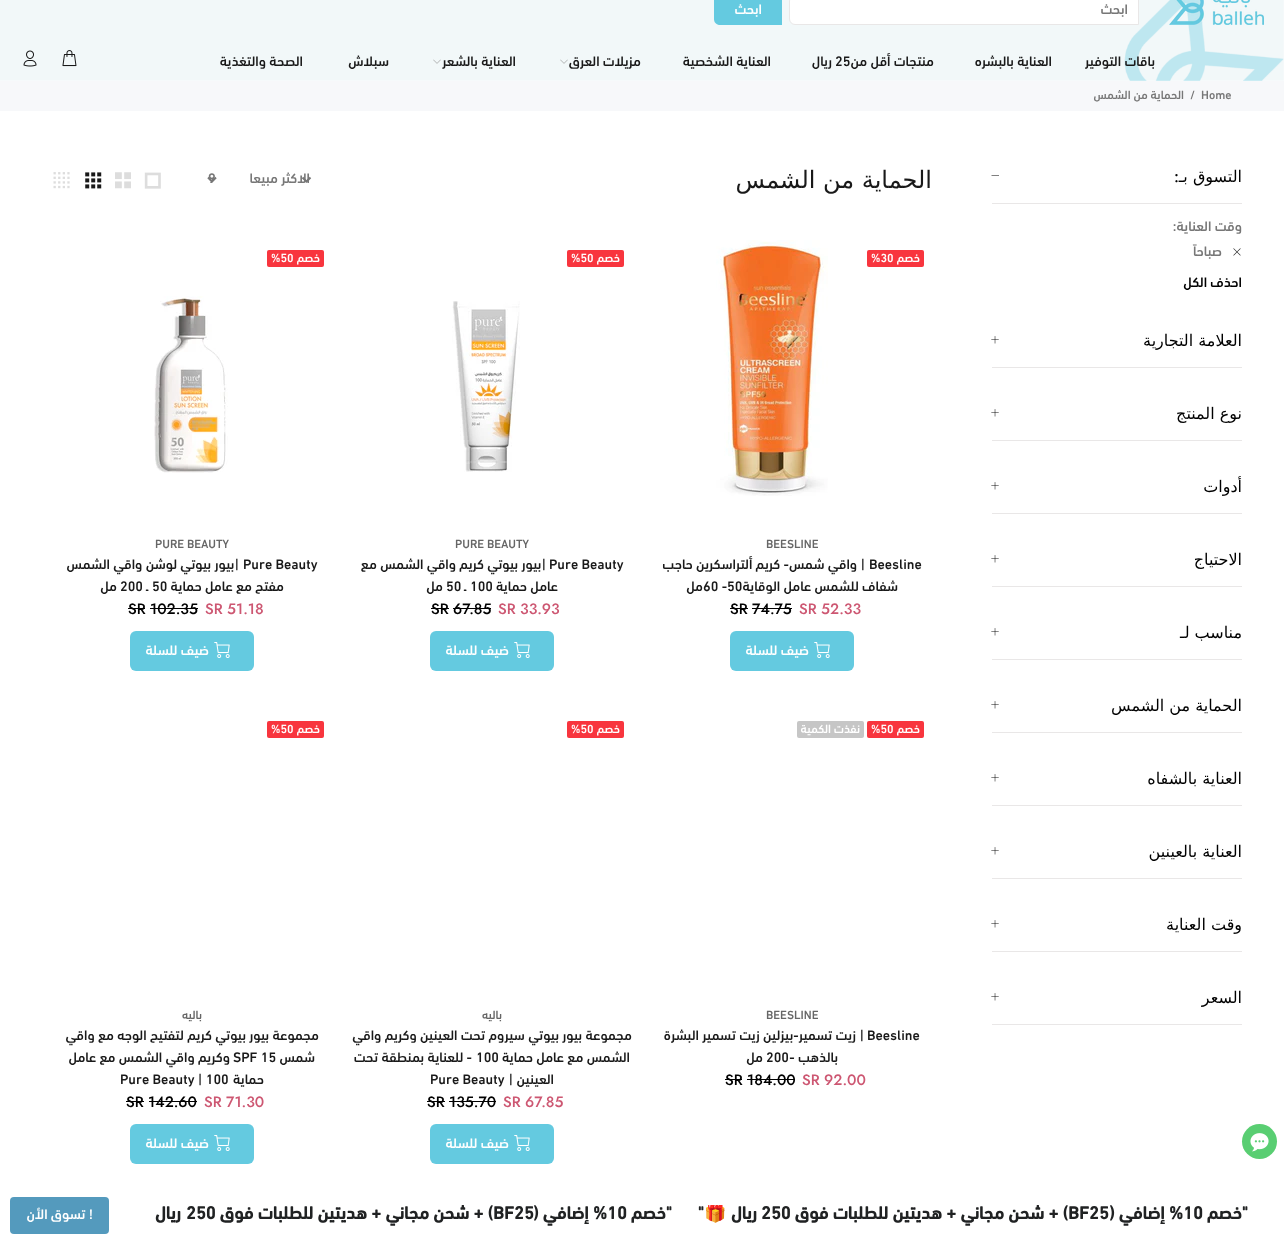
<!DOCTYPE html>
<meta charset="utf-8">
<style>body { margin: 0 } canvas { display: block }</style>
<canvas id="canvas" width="1284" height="1244"></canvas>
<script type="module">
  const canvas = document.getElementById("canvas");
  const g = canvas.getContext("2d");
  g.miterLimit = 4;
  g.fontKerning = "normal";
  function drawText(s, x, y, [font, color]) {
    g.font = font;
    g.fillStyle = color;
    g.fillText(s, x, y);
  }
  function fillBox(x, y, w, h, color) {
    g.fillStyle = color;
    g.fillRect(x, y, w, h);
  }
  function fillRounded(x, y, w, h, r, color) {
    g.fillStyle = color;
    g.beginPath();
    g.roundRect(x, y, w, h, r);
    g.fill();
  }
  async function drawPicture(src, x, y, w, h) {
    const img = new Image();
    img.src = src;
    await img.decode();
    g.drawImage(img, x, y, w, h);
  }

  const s1 = ["500 14px 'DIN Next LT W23'", "#777777"];
  const s2 = ["500 14px 'DIN Next LT W23'", "#FFFFFF"];
  const s3 = ["500 14px 'DIN Next LT W23'", "#191919"];
  const s4 = ["500 12px 'DIN Next LT W23'", "#777777"];
  const s5 = ["16px DejaVu Sans", "#000000"];
  const s6 = ["500 16px Jost", "#000000"];
  const s7 = ["500 14px 'DIN Next LT W23'", "#000000"];
  const s8 = ["24px DejaVu Sans", "#191919"];
  const s9 = ["500 12px 'DIN Next LT W23'", "#FFFFFF"];
  const s10 = ["500 12px 'DIN Next LT W23'", "#666666"];
  const s11 = ["500 15px Jost", "#CD5772"];
  const s12 = ["500 15px Jost", "#000000"];
  const s13 = ["bold 18px 'DIN Next LT W23'", "#202223"];
  const s14 = ["bold 18px Noto Color Emoji", "#202223"];

  fillBox(0, 0, 1284, 1244, "#FFFFFF");
  await drawPicture("pic1.png", 0, 0, 1284, 81);
  await drawPicture("pic2.png", 1169, 0, 95, 25);
  g.beginPath();
  g.moveTo(795, -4.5);
  g.lineTo(1138.5, -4.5);
  g.lineTo(1138.5, 24.5);
  g.lineTo(795, 24.5);
  g.bezierCurveTo(792, 24.5, 789.5, 22, 789.5, 19);
  g.lineTo(789.5, 1);
  g.bezierCurveTo(789.5, -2, 792, -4.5, 795, -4.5);
  g.closePath();
  g.fill();
  g.strokeStyle = "#E9E7E7";
  g.stroke();
  g.direction = "rtl";
  drawText("ابحث", 1128, 14, s1);
  g.fillStyle = "#64CAE0";
  g.beginPath();
  g.moveTo(720, -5);
  g.lineTo(782, -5);
  g.lineTo(782, 25);
  g.lineTo(720, 25);
  g.bezierCurveTo(716.5, 25, 714, 22.5, 714, 19);
  g.lineTo(714, 1);
  g.bezierCurveTo(714, -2.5, 716.5, -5, 720, -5);
  g.closePath();
  g.fill();
  drawText("ابحث", 762, 14, s2);
  drawText("باقات التوفير", 1155, 66, s3);
  drawText("العناية بالبشره", 1052, 66, s3);
  drawText("منتجات أقل من", 934, 66, s3);
  g.direction = "ltr";
  drawText("25", 835, 66, s3);
  g.direction = "rtl";
  drawText("ريال", 832, 66, s3);
  drawText("العناية الشخصية", 771, 66, s3);
  drawText("مزيلات العرق", 641, 66, s3);
  await drawPicture("pic3.png", 560, 59, 8, 5);
  drawText("العناية بالشعر", 516, 66, s3);
  await drawPicture("pic3.png", 433, 59, 8, 5);
  drawText("سبلاش", 389, 66, s3);
  drawText("الصحة والتغذية", 303, 66, s3);
  await drawPicture("pic4.png", 62, 50, 15, 17);
  await drawPicture("pic5.png", 23, 50, 14, 17);
  fillBox(0, 81, 1284, 30, "#F7F8FA");
  g.direction = "ltr";
  drawText("Home", 1201, 99, s4);
  drawText("/", 1190, 99, s4);
  g.direction = "rtl";
  drawText("الحماية من الشمس", 1184, 99, s4);
  g.fillStyle = "#59CE72";
  g.beginPath();
  g.arc(1259.5, 1141.5, 17.5, 0, Math.PI * 2);
  g.fill();
  await drawPicture("pic6.png", 1250, 1133, 19, 19);
  fillBox(992, 203, 250, 1, "#E9E7E7");
  drawText("التسوق بـ", 1242, 182, s5);
  drawText(":", 1179, 182, s6);
  g.beginPath();
  g.moveTo(999, 175.5);
  g.lineTo(999, 176);
  g.lineTo(991.5, 176);
  g.lineTo(991.5, 175.5);
  g.closePath();
  g.fill();
  drawText("وقت العناية:", 1242, 231, s1);
  await drawPicture("pic7.png", 1233, 248, 8, 8);
  drawText("صباحاً", 1222, 256, s1);
  drawText("احذف الكل", 1242, 287, s7);
  fillBox(992, 367, 250, 1, "#E9E7E7");
  drawText("العلامة التجارية", 1242, 346, s5);
  await drawPicture("pic8.png", 991, 336, 8, 8);
  fillBox(992, 440, 250, 1, "#E9E7E7");
  drawText("نوع المنتج", 1242, 419, s5);
  await drawPicture("pic8.png", 991, 409, 8, 8);
  fillBox(992, 513, 250, 1, "#E9E7E7");
  drawText("أدوات", 1242, 492, s5);
  await drawPicture("pic8.png", 991, 482, 8, 8);
  fillBox(992, 586, 250, 1, "#E9E7E7");
  drawText("الاحتياج", 1242, 565, s5);
  await drawPicture("pic8.png", 991, 555, 8, 8);
  fillBox(992, 659, 250, 1, "#E9E7E7");
  drawText("مناسب لـ", 1242, 638, s5);
  await drawPicture("pic8.png", 991, 628, 8, 8);
  fillBox(992, 732, 250, 1, "#E9E7E7");
  drawText("الحماية من الشمس", 1242, 711, s5);
  await drawPicture("pic8.png", 991, 701, 8, 8);
  fillBox(992, 805, 250, 1, "#E9E7E7");
  drawText("العناية بالشفاه", 1242, 784, s5);
  await drawPicture("pic8.png", 991, 774, 8, 8);
  fillBox(992, 878, 250, 1, "#E9E7E7");
  drawText("العناية بالعينين", 1242, 857, s5);
  await drawPicture("pic8.png", 991, 847, 8, 8);
  fillBox(992, 951, 250, 1, "#E9E7E7");
  drawText("وقت العناية", 1242, 930, s5);
  await drawPicture("pic8.png", 991, 920, 8, 8);
  fillBox(992, 1024, 250, 1, "#E9E7E7");
  drawText("السعر", 1242, 1003, s5);
  await drawPicture("pic8.png", 991, 993, 8, 8);
  drawText("الحماية من الشمس", 932, 188, s8);
  g.beginPath();
  g.moveTo(302.5, 177.5);
  g.lineTo(306.5, 181.5);
  g.lineTo(310.5, 177.5);
  g.strokeStyle = "#777777";
  g.lineWidth = 2;
  g.stroke();
  drawText("الاكثر مبيعا", 310, 183, s1);
  g.beginPath();
  g.moveTo(208, 177.5);
  g.lineTo(212, 181.5);
  g.lineTo(216, 177.5);
  g.stroke();
  g.direction = "ltr";
  drawText("9", 208, 183, s1);
  await drawPicture("pic9.png", 144, 172, 17, 17);
  await drawPicture("pic10.png", 115, 172, 16, 17);
  await drawPicture("pic11.png", 85, 172, 17, 17);
  await drawPicture("pic12.png", 53, 172, 17, 17);
  fillRounded(867, 250, 57, 17, 2, "#F8353E");
  g.direction = "rtl";
  drawText("خصم", 920, 262, s9);
  g.direction = "ltr";
  drawText("%30", 871, 262, s9);
  await drawPicture("pic13.png", 716, 240, 112, 256);
  drawText("BEESLINE", 766, 548, s10);
  drawText("Beesline", 869, 569, s3);
  g.direction = "rtl";
  drawText("| واقي شمس- كريم ألتراسكرين حاجب", 865, 569, s3);
  drawText("شفاف للشمس عامل الوقاية", 898, 591, s3);
  g.direction = "ltr";
  drawText("60 -50", 703, 591, s3);
  g.direction = "rtl";
  drawText("مل", 703, 591, s3);
  g.direction = "ltr";
  drawText("SR 52.33", 799, 614, s11);
  drawText("SR 74.75", 730, 614, s12);
  fillBox(730, 608, 18, 1, "#000000");
  fillBox(752, 608, 40, 1, "#000000");
  fillRounded(730, 631, 124, 40, 6, "#64CAE0");
  await drawPicture("pic14.png", 814, 642, 16, 16);
  g.direction = "rtl";
  drawText("ضيف للسلة", 809, 655, s2);
  fillRounded(567, 250, 57, 17, 2, "#F8353E");
  drawText("خصم", 620, 262, s9);
  g.direction = "ltr";
  drawText("%50", 571, 262, s9);
  await drawPicture("pic15.png", 452, 301, 68, 171);
  drawText("PURE BEAUTY", 455, 548, s10);
  drawText("Pure Beauty", 549, 569, s3);
  g.direction = "rtl";
  drawText("|بيور بيوتي كريم واقي الشمس مع", 546, 569, s3);
  drawText("عامل حماية", 558, 591, s3);
  g.direction = "ltr";
  drawText("100", 470, 591, s3);
  g.direction = "rtl";
  drawText("ـ", 466, 591, s3);
  g.direction = "ltr";
  drawText("50", 446, 591, s3);
  g.direction = "rtl";
  drawText("مل", 443, 591, s3);
  g.direction = "ltr";
  drawText("SR 33.93", 498, 614, s11);
  drawText("SR 67.85", 431, 614, s12);
  fillBox(431, 608, 18, 1, "#000000");
  fillBox(453, 608, 38, 1, "#000000");
  fillRounded(430, 631, 124, 40, 6, "#64CAE0");
  await drawPicture("pic14.png", 514, 642, 16, 16);
  g.direction = "rtl";
  drawText("ضيف للسلة", 509, 655, s2);
  fillRounded(267, 250, 57, 17, 2, "#F8353E");
  drawText("خصم", 320, 262, s9);
  g.direction = "ltr";
  drawText("%50", 271, 262, s9);
  await drawPicture("pic16.png", 154, 296, 74, 177);
  drawText("PURE BEAUTY", 155, 548, s10);
  drawText("Pure Beauty", 243, 569, s3);
  g.direction = "rtl";
  drawText("|بيور بيوتي لوشن واقي الشمس", 239, 569, s3);
  drawText("مفتح مع عامل حماية", 284, 591, s3);
  g.direction = "ltr";
  drawText("50", 152, 591, s3);
  g.direction = "rtl";
  drawText("ـ", 148, 591, s3);
  g.direction = "ltr";
  drawText("200", 120, 591, s3);
  g.direction = "rtl";
  drawText("مل", 117, 591, s3);
  g.direction = "ltr";
  drawText("SR 51.18", 205, 614, s11);
  drawText("SR 102.35", 128, 614, s12);
  fillBox(128, 608, 17, 1, "#000000");
  fillBox(150, 608, 48, 1, "#000000");
  fillRounded(130, 631, 124, 40, 6, "#64CAE0");
  await drawPicture("pic14.png", 214, 642, 16, 16);
  g.direction = "rtl";
  drawText("ضيف للسلة", 209, 655, s2);
  fillRounded(867, 721, 57, 17, 2, "#F8353E");
  drawText("خصم", 920, 733, s9);
  g.direction = "ltr";
  drawText("%50", 871, 733, s9);
  fillRounded(797, 721, 67, 17, 2, "#C6C6C6");
  g.direction = "rtl";
  drawText("نفذت الكمية", 860, 733, s9);
  g.direction = "ltr";
  drawText("BEESLINE", 766, 1019, s10);
  drawText("Beesline", 867, 1040, s3);
  g.direction = "rtl";
  drawText("| زيت تسمير-بيزلين زيت تسمير البشرة", 864, 1040, s3);
  drawText("بالذهب -", 838, 1062, s3);
  g.direction = "ltr";
  drawText("200", 766, 1062, s3);
  g.direction = "rtl";
  drawText("مل", 763, 1062, s3);
  g.direction = "ltr";
  drawText("SR 92.00", 802, 1085, s11);
  drawText("SR 184.00", 725, 1085, s12);
  fillBox(725, 1079, 17, 1, "#000000");
  fillBox(747, 1079, 48, 1, "#000000");
  fillRounded(567, 721, 57, 17, 2, "#F8353E");
  g.direction = "rtl";
  drawText("خصم", 620, 733, s9);
  g.direction = "ltr";
  drawText("%50", 571, 733, s9);
  g.direction = "rtl";
  drawText("باليه", 502, 1019, s10);
  drawText("مجموعة بيور بيوتي سيروم تحت العينين وكريم واقي", 632, 1040, s3);
  drawText("الشمس مع عامل حماية", 630, 1062, s3);
  g.direction = "ltr";
  drawText("100", 476, 1062, s3);
  g.direction = "rtl";
  drawText("- للعناية بمنطقة تحت", 472, 1062, s3);
  drawText("العينين |", 554, 1084, s3);
  g.direction = "ltr";
  drawText("Pure Beauty", 430, 1084, s3);
  drawText("SR 67.85", 503, 1107, s11);
  drawText("SR 135.70", 427, 1107, s12);
  fillBox(427, 1101, 18, 1, "#000000");
  fillBox(449, 1101, 47, 1, "#000000");
  fillRounded(430, 1124, 124, 40, 6, "#64CAE0");
  await drawPicture("pic14.png", 514, 1135, 16, 16);
  g.direction = "rtl";
  drawText("ضيف للسلة", 509, 1148, s2);
  fillRounded(267, 721, 57, 17, 2, "#F8353E");
  drawText("خصم", 320, 733, s9);
  g.direction = "ltr";
  drawText("%50", 271, 733, s9);
  g.direction = "rtl";
  drawText("باليه", 202, 1019, s10);
  drawText("مجموعة بيور بيوتي كريم لتفتيح الوجه مع واقي", 319, 1040, s3);
  drawText("شمس", 315, 1062, s3);
  g.direction = "ltr";
  drawText("SPF 15", 233, 1062, s3);
  g.direction = "rtl";
  drawText("وكريم واقي الشمس مع عامل", 230, 1062, s3);
  drawText("حماية", 264, 1084, s3);
  g.direction = "ltr";
  drawText("Pure Beauty | 100", 120, 1084, s3);
  drawText("SR 71.30", 204, 1107, s11);
  drawText("SR 142.60", 126, 1107, s12);
  fillBox(126, 1101, 18, 1, "#000000");
  fillBox(149, 1101, 48, 1, "#000000");
  fillRounded(130, 1124, 124, 40, 6, "#64CAE0");
  await drawPicture("pic14.png", 214, 1135, 16, 16);
  g.direction = "rtl";
  drawText("ضيف للسلة", 209, 1148, s2);
  drawText("\"خصم", 1248, 1219, s13);
  g.direction = "ltr";
  drawText("10", 1183, 1219, s13);
  g.direction = "rtl";
  drawText("% إضافي (", 1183, 1219, s13);
  g.direction = "ltr";
  drawText("BF25", 1068, 1219, s13);
  g.direction = "rtl";
  drawText(") + شحن مجاني + هديتين للطلبات فوق", 1068, 1219, s13);
  g.direction = "ltr";
  drawText("250", 761, 1219, s13);
  g.direction = "rtl";
  drawText("ريال", 757, 1219, s13);
  g.save();
  g.beginPath();
  g.rect(135, 1205, 1139, 21);
  g.clip();
  drawText("🎁", 727, 1219, s14);
  g.restore();
  drawText("\"", 704, 1219, s13);
  drawText("\"خصم", 672, 1219, s13);
  g.direction = "ltr";
  drawText("10", 607, 1219, s13);
  g.direction = "rtl";
  drawText("% إضافي (", 607, 1219, s13);
  g.direction = "ltr";
  drawText("BF25", 493, 1219, s13);
  g.direction = "rtl";
  drawText(") + شحن مجاني + هديتين للطلبات فوق", 493, 1219, s13);
  g.direction = "ltr";
  drawText("250", 186, 1219, s13);
  g.direction = "rtl";
  drawText("ريال", 181, 1219, s13);
  fillRounded(10, 1197, 99, 37, 4, "#549ABD");
  drawText("! تسوق الأن", 93, 1219, s2);
</script>
